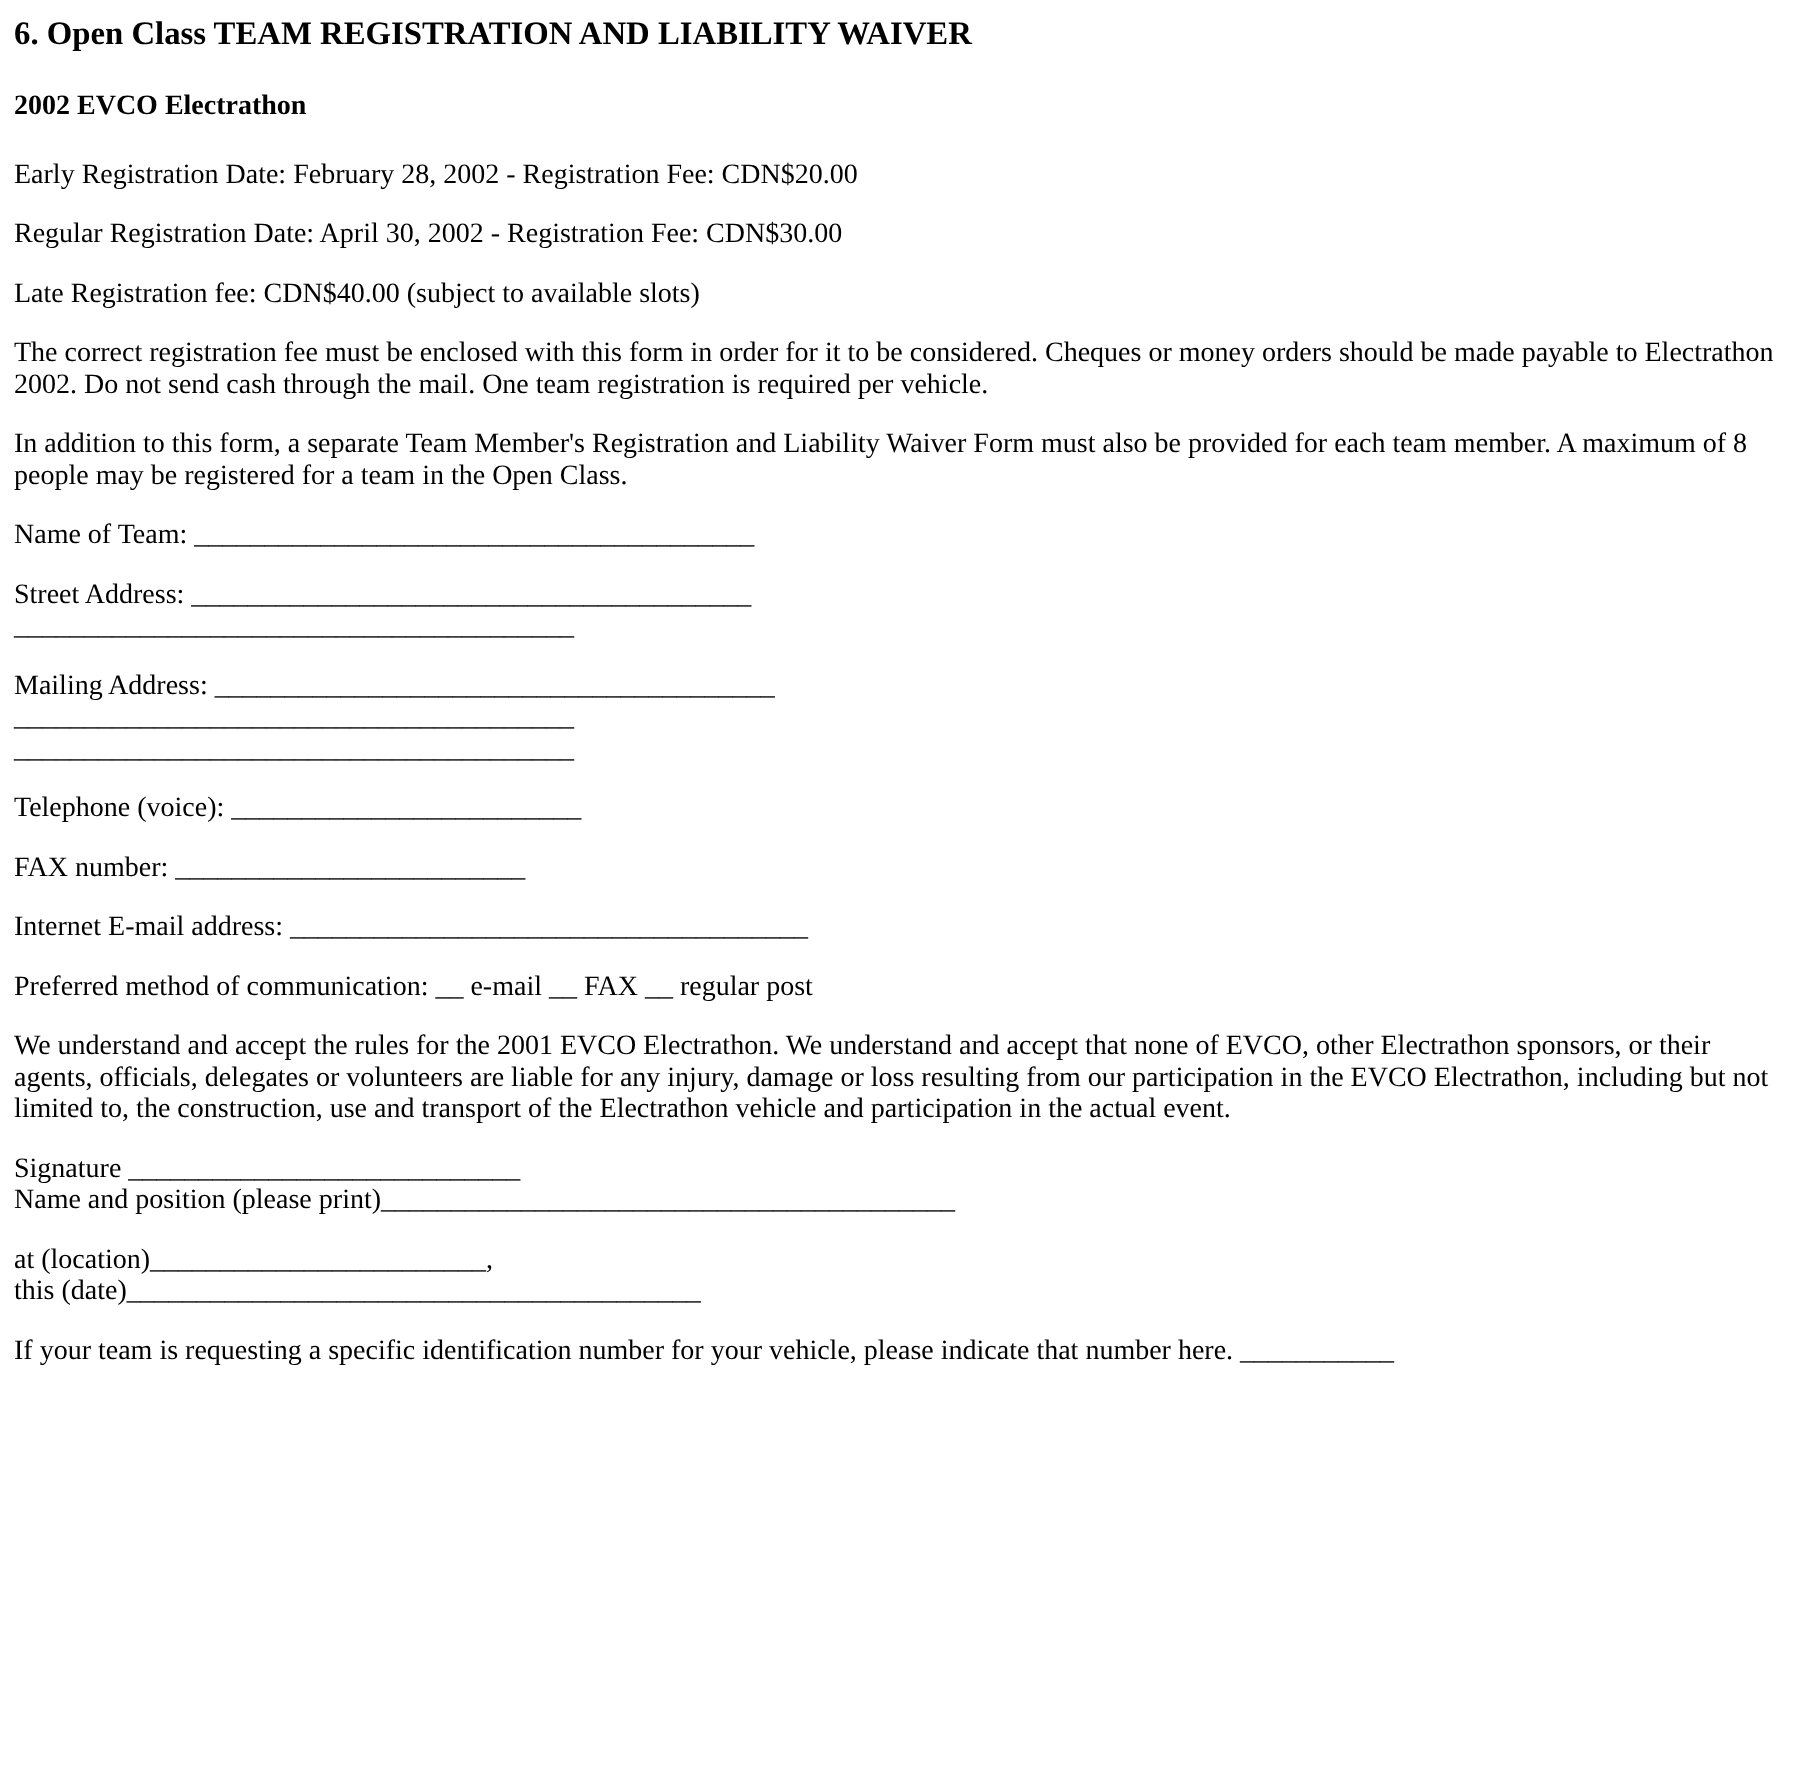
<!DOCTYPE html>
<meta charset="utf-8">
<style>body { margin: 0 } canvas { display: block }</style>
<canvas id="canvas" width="1801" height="1790"></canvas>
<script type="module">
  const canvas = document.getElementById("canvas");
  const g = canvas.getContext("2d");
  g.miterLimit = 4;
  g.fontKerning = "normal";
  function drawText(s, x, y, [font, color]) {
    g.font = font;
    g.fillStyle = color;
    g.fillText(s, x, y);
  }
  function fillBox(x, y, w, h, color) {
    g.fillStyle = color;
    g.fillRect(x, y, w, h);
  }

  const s1 = ["bold 32.75px Liberation Serif", "#000000"];
  const s2 = ["bold 28px Liberation Serif", "#000000"];
  const s3 = ["28px Liberation Serif", "#000000"];

  fillBox(0, 0, 1801, 1790, "#FFFFFF");
  drawText("6. Open Class TEAM REGISTRATION AND LIABILITY WAIVER", 14, 44, s1);
  drawText("2002 EVCO Electrathon", 14, 114, s2);
  drawText("Early Registration Date: February 28, 2002 - Registration Fee: CDN$20.00", 14, 183, s3);
  drawText("Regular Registration Date: April 30, 2002 - Registration Fee: CDN$30.00", 14, 242, s3);
  drawText("Late Registration fee: CDN$40.00 (subject to available slots)", 14, 302, s3);
  drawText("The correct registration fee must be enclosed with this form in order for it to be considered. Cheques or money orders should be made payable to Electrathon", 14, 361, s3);
  drawText("2002. Do not send cash through the mail. One team registration is required per vehicle.", 14, 393, s3);
  drawText("In addition to this form, a separate Team Member's Registration and Liability Waiver Form must also be provided for each team member. A maximum of 8", 14, 452, s3);
  drawText("people may be registered for a team in the Open Class.", 14, 484, s3);
  drawText("Name of Team: ________________________________________", 14, 543, s3);
  drawText("Street Address: ________________________________________", 14, 603, s3);
  drawText("________________________________________", 14, 634, s3);
  drawText("Mailing Address: ________________________________________", 14, 694, s3);
  drawText("________________________________________", 14, 725, s3);
  drawText("________________________________________", 14, 757, s3);
  drawText("Telephone (voice): _________________________", 14, 816, s3);
  drawText("FAX number: _________________________", 14, 876, s3);
  drawText("Internet E-mail address: _____________________________________", 14, 935, s3);
  drawText("Preferred method of communication: __ e-mail __ FAX __ regular post", 14, 995, s3);
  drawText("We understand and accept the rules for the 2001 EVCO Electrathon. We understand and accept that none of EVCO, other Electrathon sponsors, or their", 14, 1054, s3);
  drawText("agents, officials, delegates or volunteers are liable for any injury, damage or loss resulting from our participation in the EVCO Electrathon, including but not", 14, 1086, s3);
  drawText("limited to, the construction, use and transport of the Electrathon vehicle and participation in the actual event.", 14, 1117, s3);
  drawText("Signature ____________________________", 14, 1177, s3);
  drawText("Name and position (please print)_________________________________________", 14, 1208, s3);
  drawText("at (location)________________________,", 14, 1268, s3);
  drawText("this (date)_________________________________________", 14, 1299, s3);
  drawText("If your team is requesting a specific identification number for your vehicle, please indicate that number here. ___________", 14, 1359, s3);
</script>
